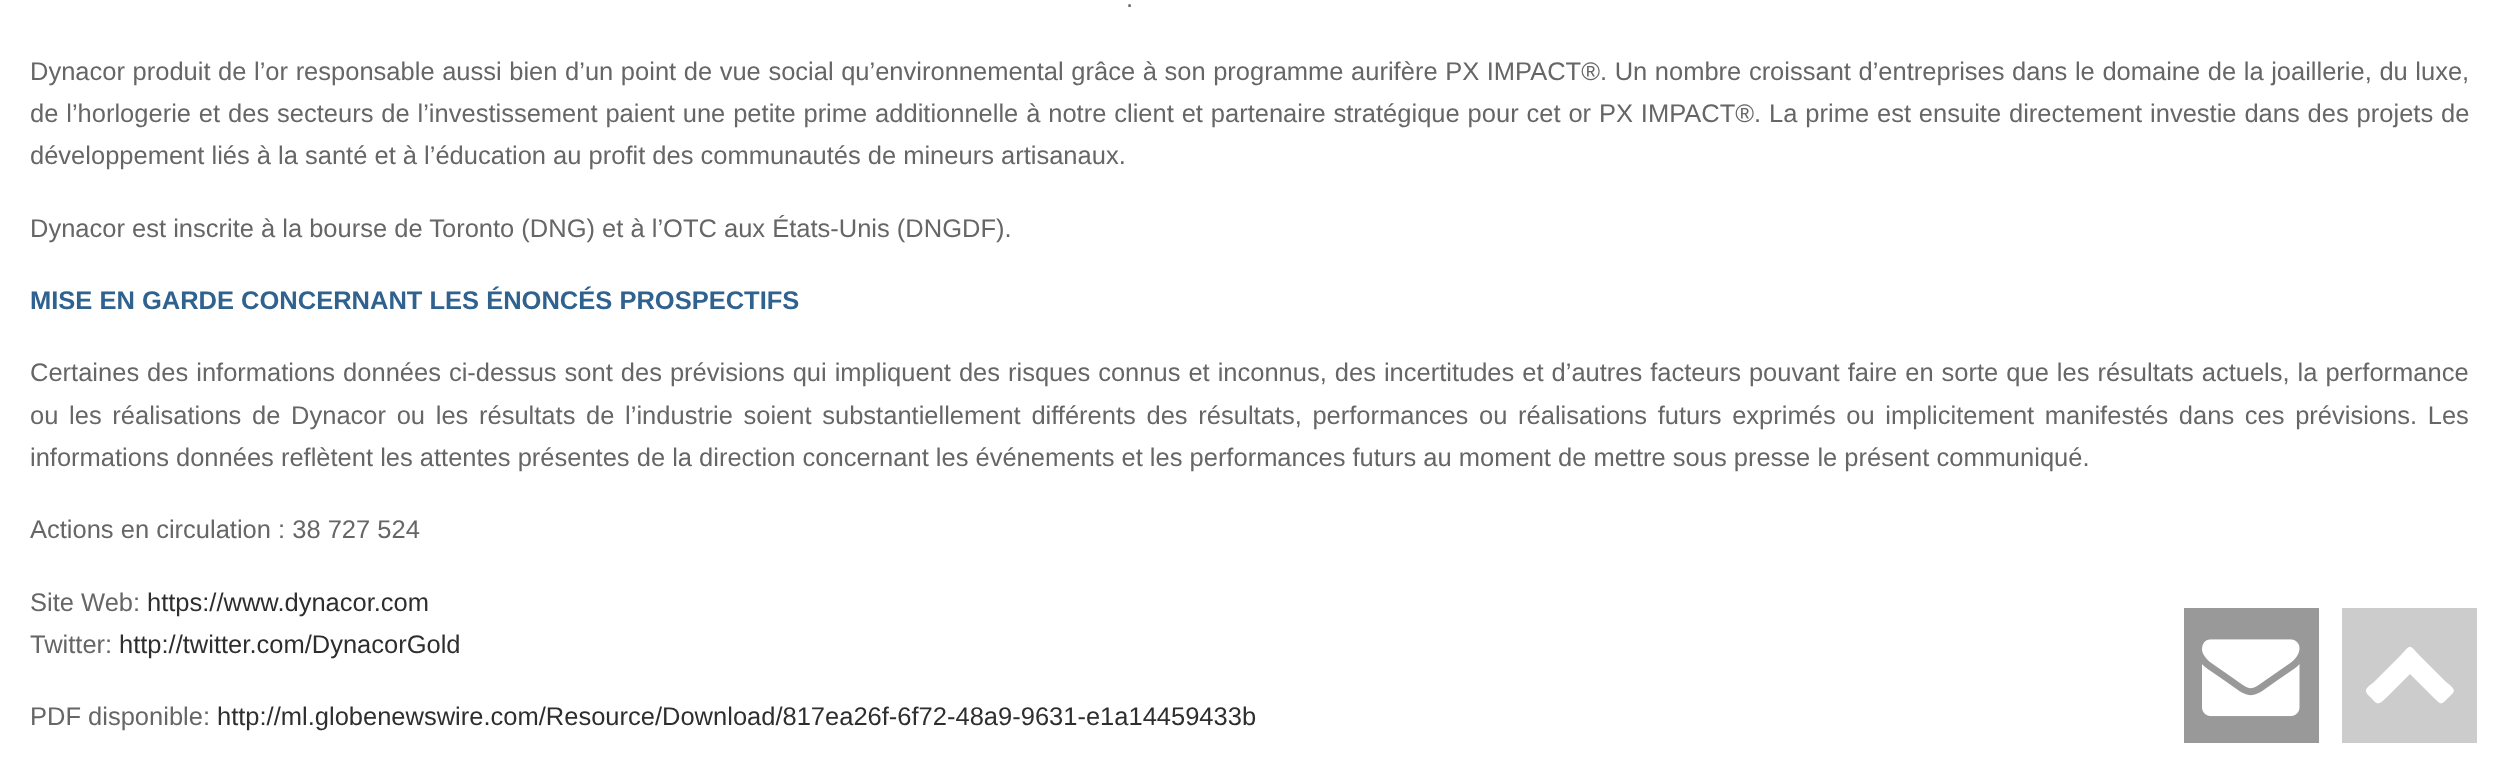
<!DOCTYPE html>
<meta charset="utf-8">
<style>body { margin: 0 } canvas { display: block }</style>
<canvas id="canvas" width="2498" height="764"></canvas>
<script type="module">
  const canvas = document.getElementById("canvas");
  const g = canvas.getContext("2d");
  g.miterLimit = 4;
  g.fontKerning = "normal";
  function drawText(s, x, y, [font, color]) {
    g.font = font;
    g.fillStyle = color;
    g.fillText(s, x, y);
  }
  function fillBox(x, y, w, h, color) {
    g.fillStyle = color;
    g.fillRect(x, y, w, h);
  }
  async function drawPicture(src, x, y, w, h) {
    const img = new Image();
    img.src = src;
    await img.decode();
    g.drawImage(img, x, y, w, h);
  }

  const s1 = ["25.5px Liberation Sans", "#666666"];
  const s2 = ["bold 25.5px Liberation Sans", "#306290"];
  const s3 = ["25.5px Liberation Sans", "#2E2E2E"];

  fillBox(0, 0, 2498, 764, "#FFFFFF");
  drawText(".", 1126, 7, s1);
  g.wordSpacing = "0.5px";
  drawText("Dynacor produit de l’or responsable aussi bien d’un point de vue social qu’environnemental grâce à son programme aurifère PX IMPACT®. Un nombre croissant d’entreprises dans le domaine de la joaillerie, du luxe,", 30, 80, s1);
  g.wordSpacing = "0.8px";
  drawText("de l’horlogerie et des secteurs de l’investissement paient une petite prime additionnelle à notre client et partenaire stratégique pour cet or PX IMPACT®. La prime est ensuite directement investie dans des projets de", 30, 122, s1);
  g.wordSpacing = "0px";
  drawText("développement liés à la santé et à l’éducation au profit des communautés de mineurs artisanaux.", 30, 164, s1);
  drawText("Dynacor est inscrite à la bourse de Toronto (DNG) et à l’OTC aux États-Unis (DNGDF).", 30, 237, s1);
  drawText("MISE EN GARDE CONCERNANT LES ÉNONCÉS PROSPECTIFS", 30, 309, s2);
  g.wordSpacing = "0.9px";
  drawText("Certaines des informations données ci-dessus sont des prévisions qui impliquent des risques connus et inconnus, des incertitudes et d’autres facteurs pouvant faire en sorte que les résultats actuels, la performance", 30, 381, s1);
  g.wordSpacing = "3.6px";
  drawText("ou les réalisations de Dynacor ou les résultats de l’industrie soient substantiellement différents des résultats, performances ou réalisations futurs exprimés ou implicitement manifestés dans ces prévisions. Les", 30, 424, s1);
  g.wordSpacing = "0px";
  drawText("informations données reflètent les attentes présentes de la direction concernant les événements et les performances futurs au moment de mettre sous presse le présent communiqué.", 30, 466, s1);
  drawText("Actions en circulation : 38 727 524", 30, 538, s1);
  drawText("Site Web:", 30, 611, s1);
  drawText("https://www.dynacor.com", 147, 611, s3);
  drawText("Twitter:", 30, 653, s1);
  drawText("http://twitter.com/DynacorGold", 119, 653, s3);
  drawText("PDF disponible:", 30, 725, s1);
  drawText("http://ml.globenewswire.com/Resource/Download/817ea26f-6f72-48a9-9631-e1a14459433b", 217, 725, s3);
  fillBox(2184, 608, 135, 135, "#999999");
  await drawPicture("pic1.png", 2202, 639, 98, 78);
  fillBox(2342, 608, 135, 135, "#CCCCCC");
  g.fillStyle = "#FFFFFF";
  g.beginPath();
  g.moveTo(2453, 693);
  g.lineTo(2445, 701);
  g.bezierCurveTo(2440, 706, 2439, 702, 2434, 698);
  g.lineTo(2410, 674);
  g.lineTo(2386, 698);
  g.bezierCurveTo(2376, 707, 2378, 704, 2368, 695);
  g.bezierCurveTo(2363, 689, 2368, 687, 2374, 682);
  g.lineTo(2401, 655);
  g.bezierCurveTo(2411, 644, 2409, 644, 2419, 655);
  g.lineTo(2446, 682);
  g.bezierCurveTo(2447, 683, 2457, 689, 2453, 693);
  g.closePath();
  g.fill();
</script>
